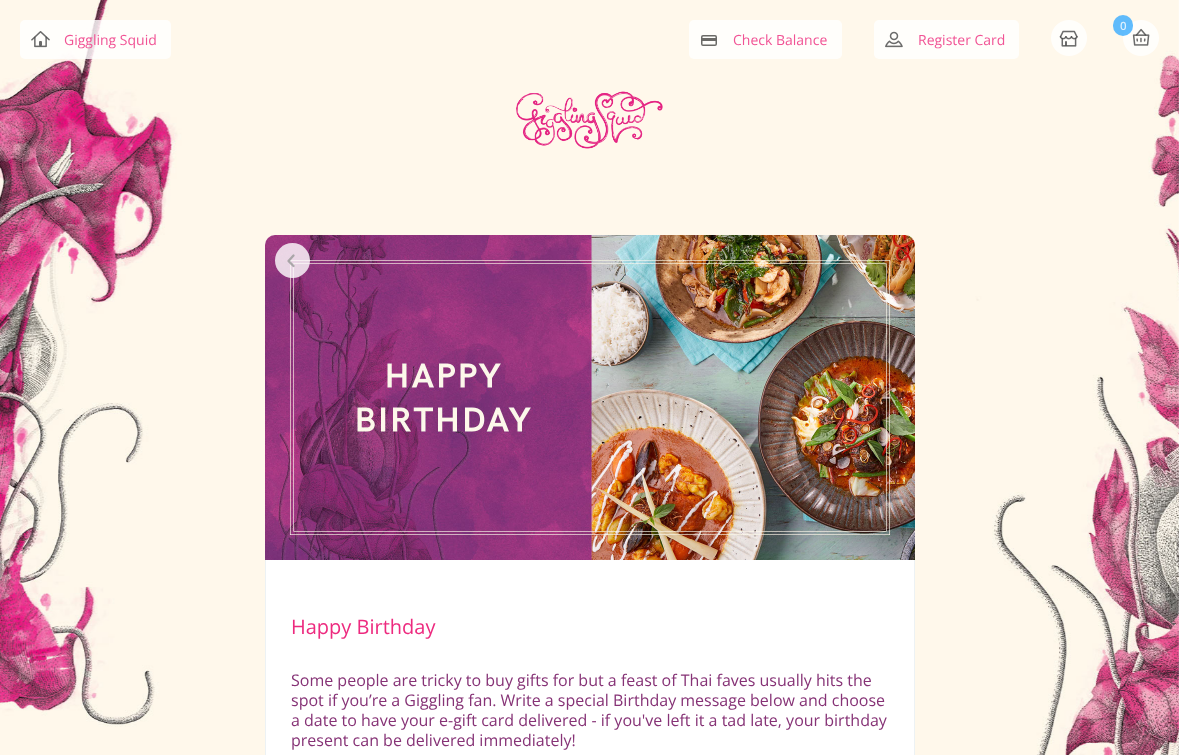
<!DOCTYPE html>
<meta charset="utf-8">
<style>body { margin: 0 } canvas { display: block }</style>
<canvas id="canvas" width="1179" height="755"></canvas>
<script type="module">
  const canvas = document.getElementById("canvas");
  const g = canvas.getContext("2d");
  g.miterLimit = 4;
  g.fontKerning = "normal";
  function drawText(s, x, y, [font, color]) {
    g.font = font;
    g.fillStyle = color;
    g.fillText(s, x, y);
  }
  function fillBox(x, y, w, h, color) {
    g.fillStyle = color;
    g.fillRect(x, y, w, h);
  }
  function fillRounded(x, y, w, h, r, color) {
    g.fillStyle = color;
    g.beginPath();
    g.roundRect(x, y, w, h, r);
    g.fill();
  }
  async function drawPicture(src, x, y, w, h) {
    const img = new Image();
    img.src = src;
    await img.decode();
    g.drawImage(img, x, y, w, h);
  }

  const s1 = ["bold 11px Open Sans", "#DFF1FE"];
  const s2 = ["14px Open Sans", "#F15395"];
  const s3 = ["20px Open Sans", "#ED2A7F"];
  const s4 = ["16px Open Sans", "#863376"];

  fillBox(0, 0, 1179, 755, "#FFFFFF");
  await drawPicture("pic1.png", 0, 0, 1179, 755);
  await drawPicture("pic2.png", 1051, 20, 36, 36);
  await drawPicture("pic3.png", 1123, 20, 36, 36);
  fillRounded(1113, 15, 20, 21, 10, "rgba(56, 171, 255, 0.8)");
  drawText("0", 1120, 30, s1);
  fillRounded(20, 20, 151, 39, 5, "rgba(255, 255, 255, 0.8)");
  await drawPicture("pic4.png", 31, 31, 19, 17);
  drawText("Giggling Squid", 64, 45, s2);
  fillRounded(689, 20, 153, 39, 5, "#FFFEFB");
  g.beginPath();
  g.roundRect(701.75, 35.75, 14.5, 9.5, 1.25);
  g.strokeStyle = "#6B6A67";
  g.lineWidth = 1.5;
  g.stroke();
  fillBox(701, 38, 16, 3, "#6B6A67");
  drawText("Check Balance", 733, 45, s2);
  fillRounded(874, 20, 145, 39, 5, "#FFFEFB");
  await drawPicture("pic5.png", 885, 31, 18, 17);
  drawText("Register Card", 918, 45, s2);
  await drawPicture("pic6.png", 516, 91, 147, 58);
  fillRounded(265, 235, 650, 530, 10, "#FFFFFF");
  await drawPicture("pic7.png", 265, 235, 650, 325);
  g.fillStyle = "rgba(255, 255, 255, 0.8)";
  g.beginPath();
  g.arc(292.5, 260.5, 17.5, 0, Math.PI * 2);
  g.fill();
  g.beginPath();
  g.moveTo(293.5, 266);
  g.lineTo(288.5, 261);
  g.lineTo(293.5, 255.5);
  g.strokeStyle = "rgba(152, 152, 152, 0.8)";
  g.lineWidth = 2.3;
  g.lineCap = "round";
  g.lineJoin = "round";
  g.stroke();
  fillBox(914, 560, 1, 195, "#EDF2F4");
  fillBox(265, 560, 1, 195, "#EDF2F4");
  drawText("Happy Birthday", 291, 634, s3);
  drawText("Some people are tricky to buy gifts for but a feast of Thai faves usually hits the", 291, 686, s4);
  drawText("spot if you’re a Giggling fan. Write a special Birthday message below and choose", 291, 706, s4);
  drawText("a date to have your e-gift card delivered - if you've left it a tad late, your birthday", 291, 726, s4);
  drawText("present can be delivered immediately!", 291, 746, s4);
</script>
